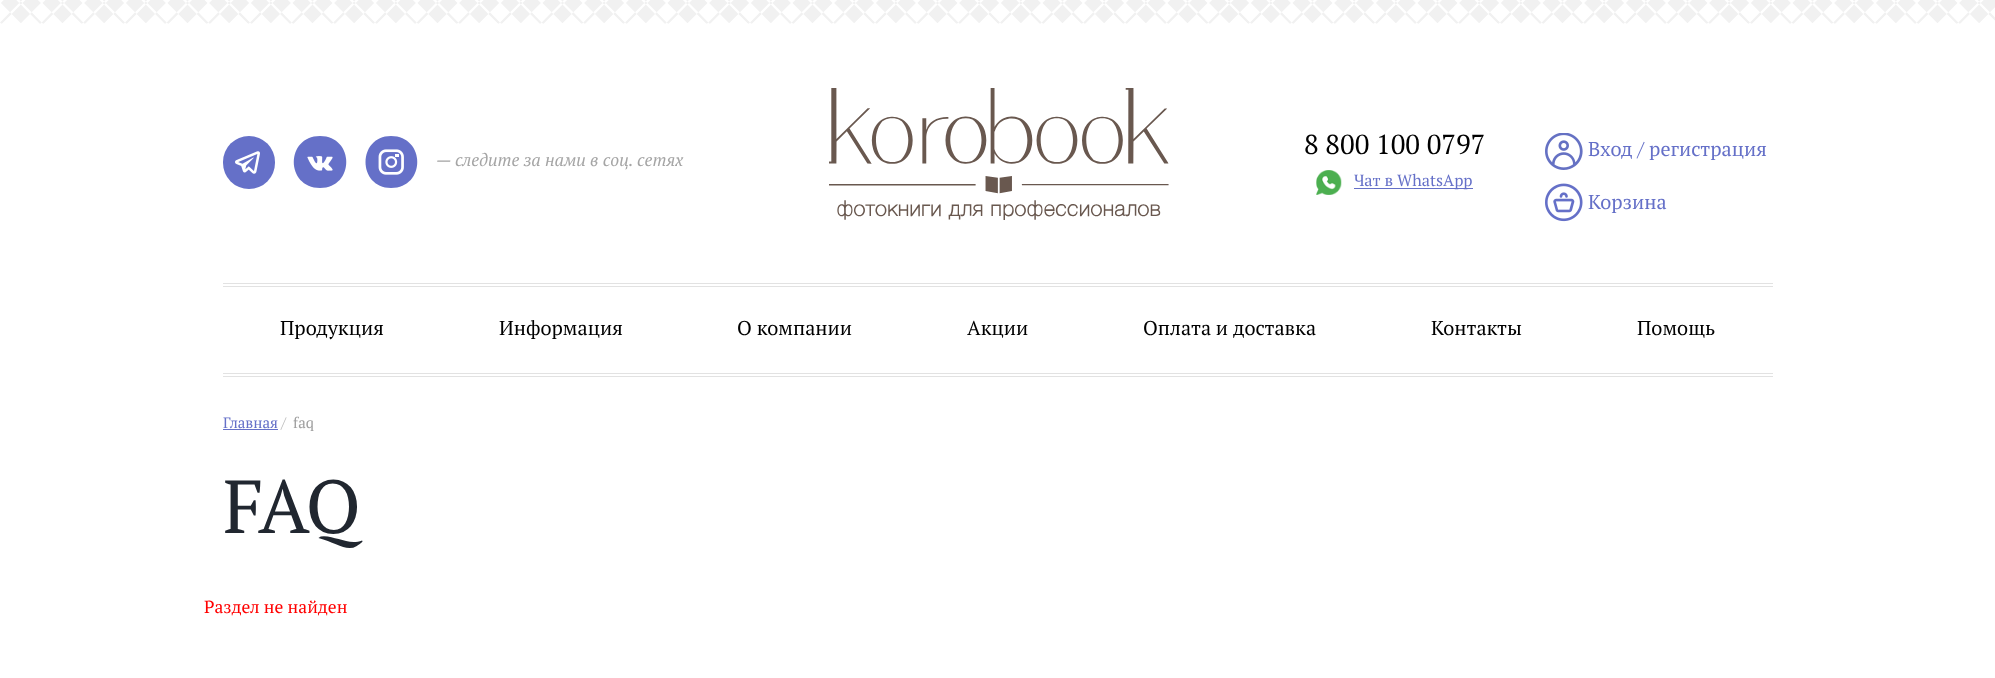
<!DOCTYPE html>
<meta charset="utf-8">
<style>body { margin: 0 } canvas { display: block }</style>
<canvas id="canvas" width="1995" height="678"></canvas>
<script type="module">
  const canvas = document.getElementById("canvas");
  const g = canvas.getContext("2d");
  g.miterLimit = 4;
  g.fontKerning = "normal";
  function drawText(s, x, y, [font, color]) {
    g.font = font;
    g.fillStyle = color;
    g.fillText(s, x, y);
  }
  function fillBox(x, y, w, h, color) {
    g.fillStyle = color;
    g.fillRect(x, y, w, h);
  }
  function fillRounded(x, y, w, h, r, color) {
    g.fillStyle = color;
    g.beginPath();
    g.roundRect(x, y, w, h, r);
    g.fill();
  }
  async function drawPicture(src, x, y, w, h) {
    const img = new Image();
    img.src = src;
    await img.decode();
    g.drawImage(img, x, y, w, h);
  }

  const s1 = ["italic 17.5px PT Serif", "#A5A5A5"];
  const s2 = ["27.5px PT Serif", "#000000"];
  const s3 = ["16.25px PT Serif", "#6570C8"];
  const s4 = ["20px PT Serif", "#6570C8"];
  const s5 = ["20px PT Serif", "#000000"];
  const s6 = ["15px PT Serif", "#6570C8"];
  const s7 = ["15px PT Serif", "#BABABA"];
  const s8 = ["15px PT Serif", "#9F9F9F"];
  const s9 = ["75px PT Serif", "#212730"];
  const s10 = ["17.5px PT Serif", "#FF0000"];

  fillBox(0, 0, 1995, 678, "#FFFFFF");
  await drawPicture("pic1.png", 0, 0, 1995, 24);
  fillRounded(223, 136, 52, 53, 26, "#6570C8");
  await drawPicture("pic2.png", 235, 151, 25, 23);
  g.beginPath();
  g.moveTo(320, 136);
  g.bezierCurveTo(355, 136, 355, 188, 320, 188);
  g.bezierCurveTo(285, 188, 285, 136, 320, 136);
  g.closePath();
  g.fill();
  await drawPicture("pic3.png", 307, 156, 26, 15);
  g.beginPath();
  g.moveTo(391, 136);
  g.bezierCurveTo(426, 136, 426, 188, 391, 188);
  g.bezierCurveTo(357, 188, 357, 136, 391, 136);
  g.closePath();
  g.fill();
  await drawPicture("pic4.png", 378, 149, 26, 26);
  fillBox(395, 154, 4, 3, "#FFFFFF");
  await drawPicture("pic5.png", 385, 156, 13, 12);
  drawText("— следите за нами в соц. сетях", 436, 166, s1);
  await drawPicture("pic6.png", 829, 88, 340, 132);
  drawText("8 800 100 0797", 1304, 154, s2);
  await drawPicture("pic7.png", 1316, 170, 26, 25);
  fillBox(1354, 188, 119, 1, "#6570C8");
  drawText("Чат в WhatsApp", 1354, 186, s3);
  await drawPicture("pic8.png", 1545, 133, 38, 37);
  drawText("Вход / регистрация", 1588, 156, s4);
  await drawPicture("pic9.png", 1545, 183, 38, 39);
  drawText("Корзина", 1588, 209, s4);
  fillBox(223, 283, 1550, 1, "#E2E2E2");
  fillBox(223, 286, 1550, 1, "#E2E2E2");
  drawText("Продукция", 280, 335, s5);
  drawText("Информация", 499, 335, s5);
  drawText("О компании", 737, 335, s5);
  drawText("Акции", 967, 335, s5);
  drawText("Оплата и доставка", 1143, 335, s5);
  drawText("Контакты", 1431, 335, s5);
  drawText("Помощь", 1637, 335, s5);
  fillBox(223, 373, 1550, 1, "#E2E2E2");
  fillBox(223, 376, 1550, 1, "#E2E2E2");
  drawText("Главная", 223, 428, s6);
  fillBox(223, 429, 55, 1, "#6570C8");
  drawText("/", 281, 428, s7);
  drawText("faq", 293, 428, s8);
  drawText("FAQ", 223, 533, s9);
  drawText("Раздел не найден", 204, 613, s10);
</script>
